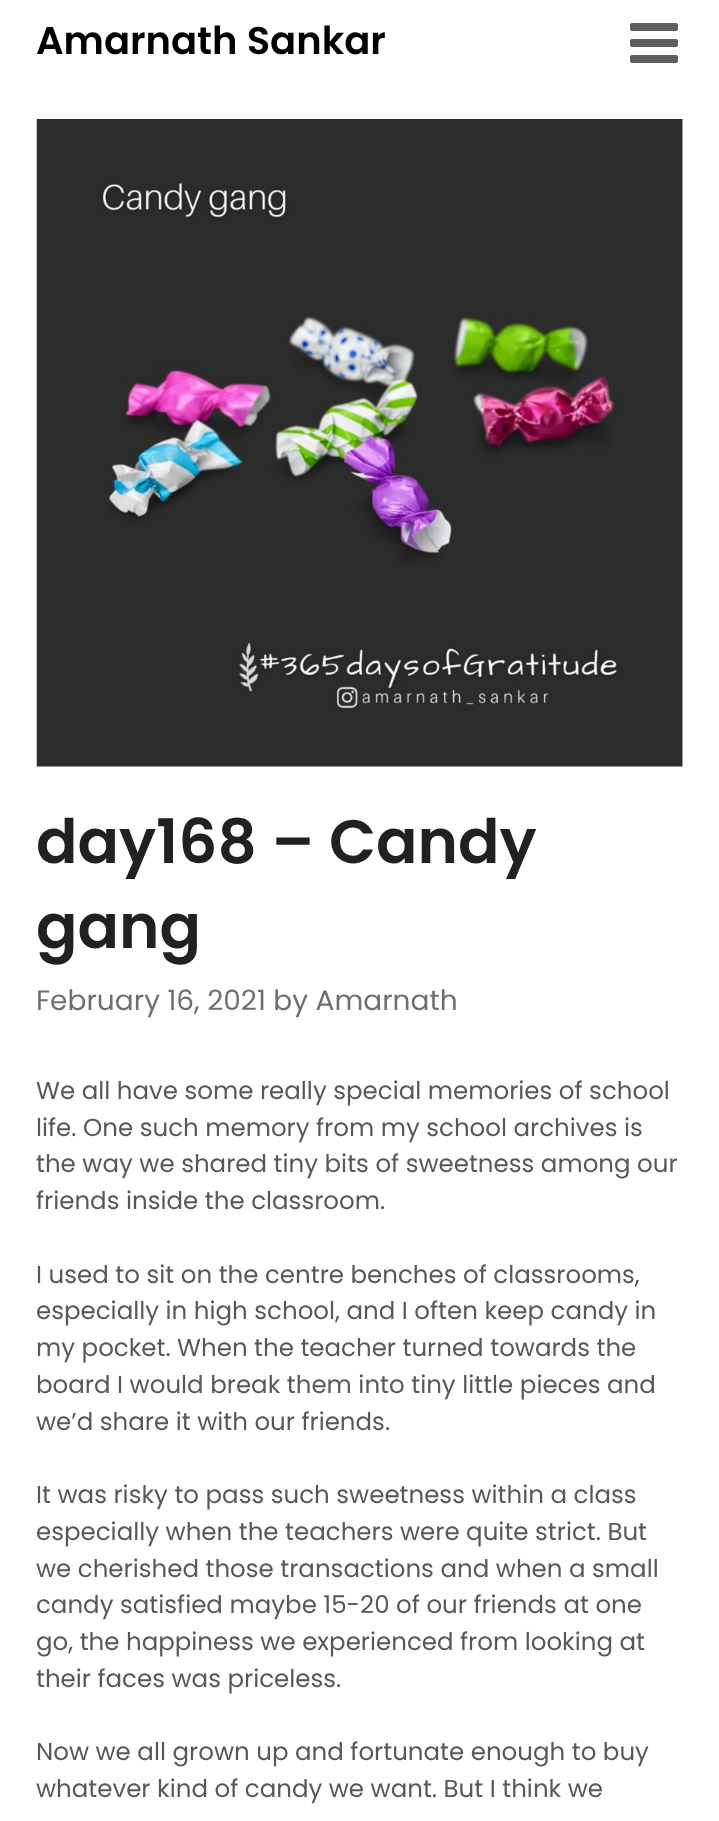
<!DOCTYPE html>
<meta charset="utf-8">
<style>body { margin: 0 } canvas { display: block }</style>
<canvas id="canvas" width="719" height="1821"></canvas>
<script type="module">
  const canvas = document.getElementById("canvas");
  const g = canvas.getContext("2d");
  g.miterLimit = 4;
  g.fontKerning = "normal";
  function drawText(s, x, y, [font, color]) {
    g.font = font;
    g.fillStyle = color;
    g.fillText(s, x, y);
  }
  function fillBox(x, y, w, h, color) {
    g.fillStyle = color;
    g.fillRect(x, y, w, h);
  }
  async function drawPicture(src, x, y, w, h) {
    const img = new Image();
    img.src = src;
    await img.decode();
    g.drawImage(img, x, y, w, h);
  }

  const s1 = ["600 38.5px Poppins", "#000000"];
  const s2 = ["600 61.25px Poppins", "#212121"];
  const s3 = ["28px Poppins", "#6F6F6F"];
  const s4 = ["24.5px Poppins", "#585858"];

  fillBox(0, 0, 719, 1821, "#FFFFFF");
  drawText("Amarnath Sankar", 36, 54, s1);
  await drawPicture("pic1.png", 630, 23, 48, 40);
  await drawPicture("pic2.png", 36, 119, 647, 648);
  drawText("day168 – Candy", 36, 863, s2);
  drawText("gang", 36, 948, s2);
  drawText("February 16, 2021 by Amarnath", 36, 1010, s3);
  drawText("We all have some really special memories of school", 36, 1099, s4);
  drawText("life. One such memory from my school archives is", 36, 1136, s4);
  drawText("the way we shared tiny bits of sweetness among our", 36, 1172, s4);
  drawText("friends inside the classroom.", 36, 1209, s4);
  drawText("I used to sit on the centre benches of classrooms,", 36, 1283, s4);
  drawText("especially in high school, and I often keep candy in", 36, 1319, s4);
  drawText("my pocket. When the teacher turned towards the", 36, 1356, s4);
  drawText("board I would break them into tiny little pieces and", 36, 1393, s4);
  drawText("we’d share it with our friends.", 36, 1430, s4);
  drawText("It was risky to pass such sweetness within a class", 36, 1503, s4);
  drawText("especially when the teachers were quite strict. But", 36, 1540, s4);
  drawText("we cherished those transactions and when a small", 36, 1577, s4);
  drawText("candy satisfied maybe 15-20 of our friends at one", 36, 1613, s4);
  drawText("go, the happiness we experienced from looking at", 36, 1650, s4);
  drawText("their faces was priceless.", 36, 1687, s4);
  drawText("Now we all grown up and fortunate enough to buy", 36, 1760, s4);
  drawText("whatever kind of candy we want. But I think we", 36, 1797, s4);
</script>
